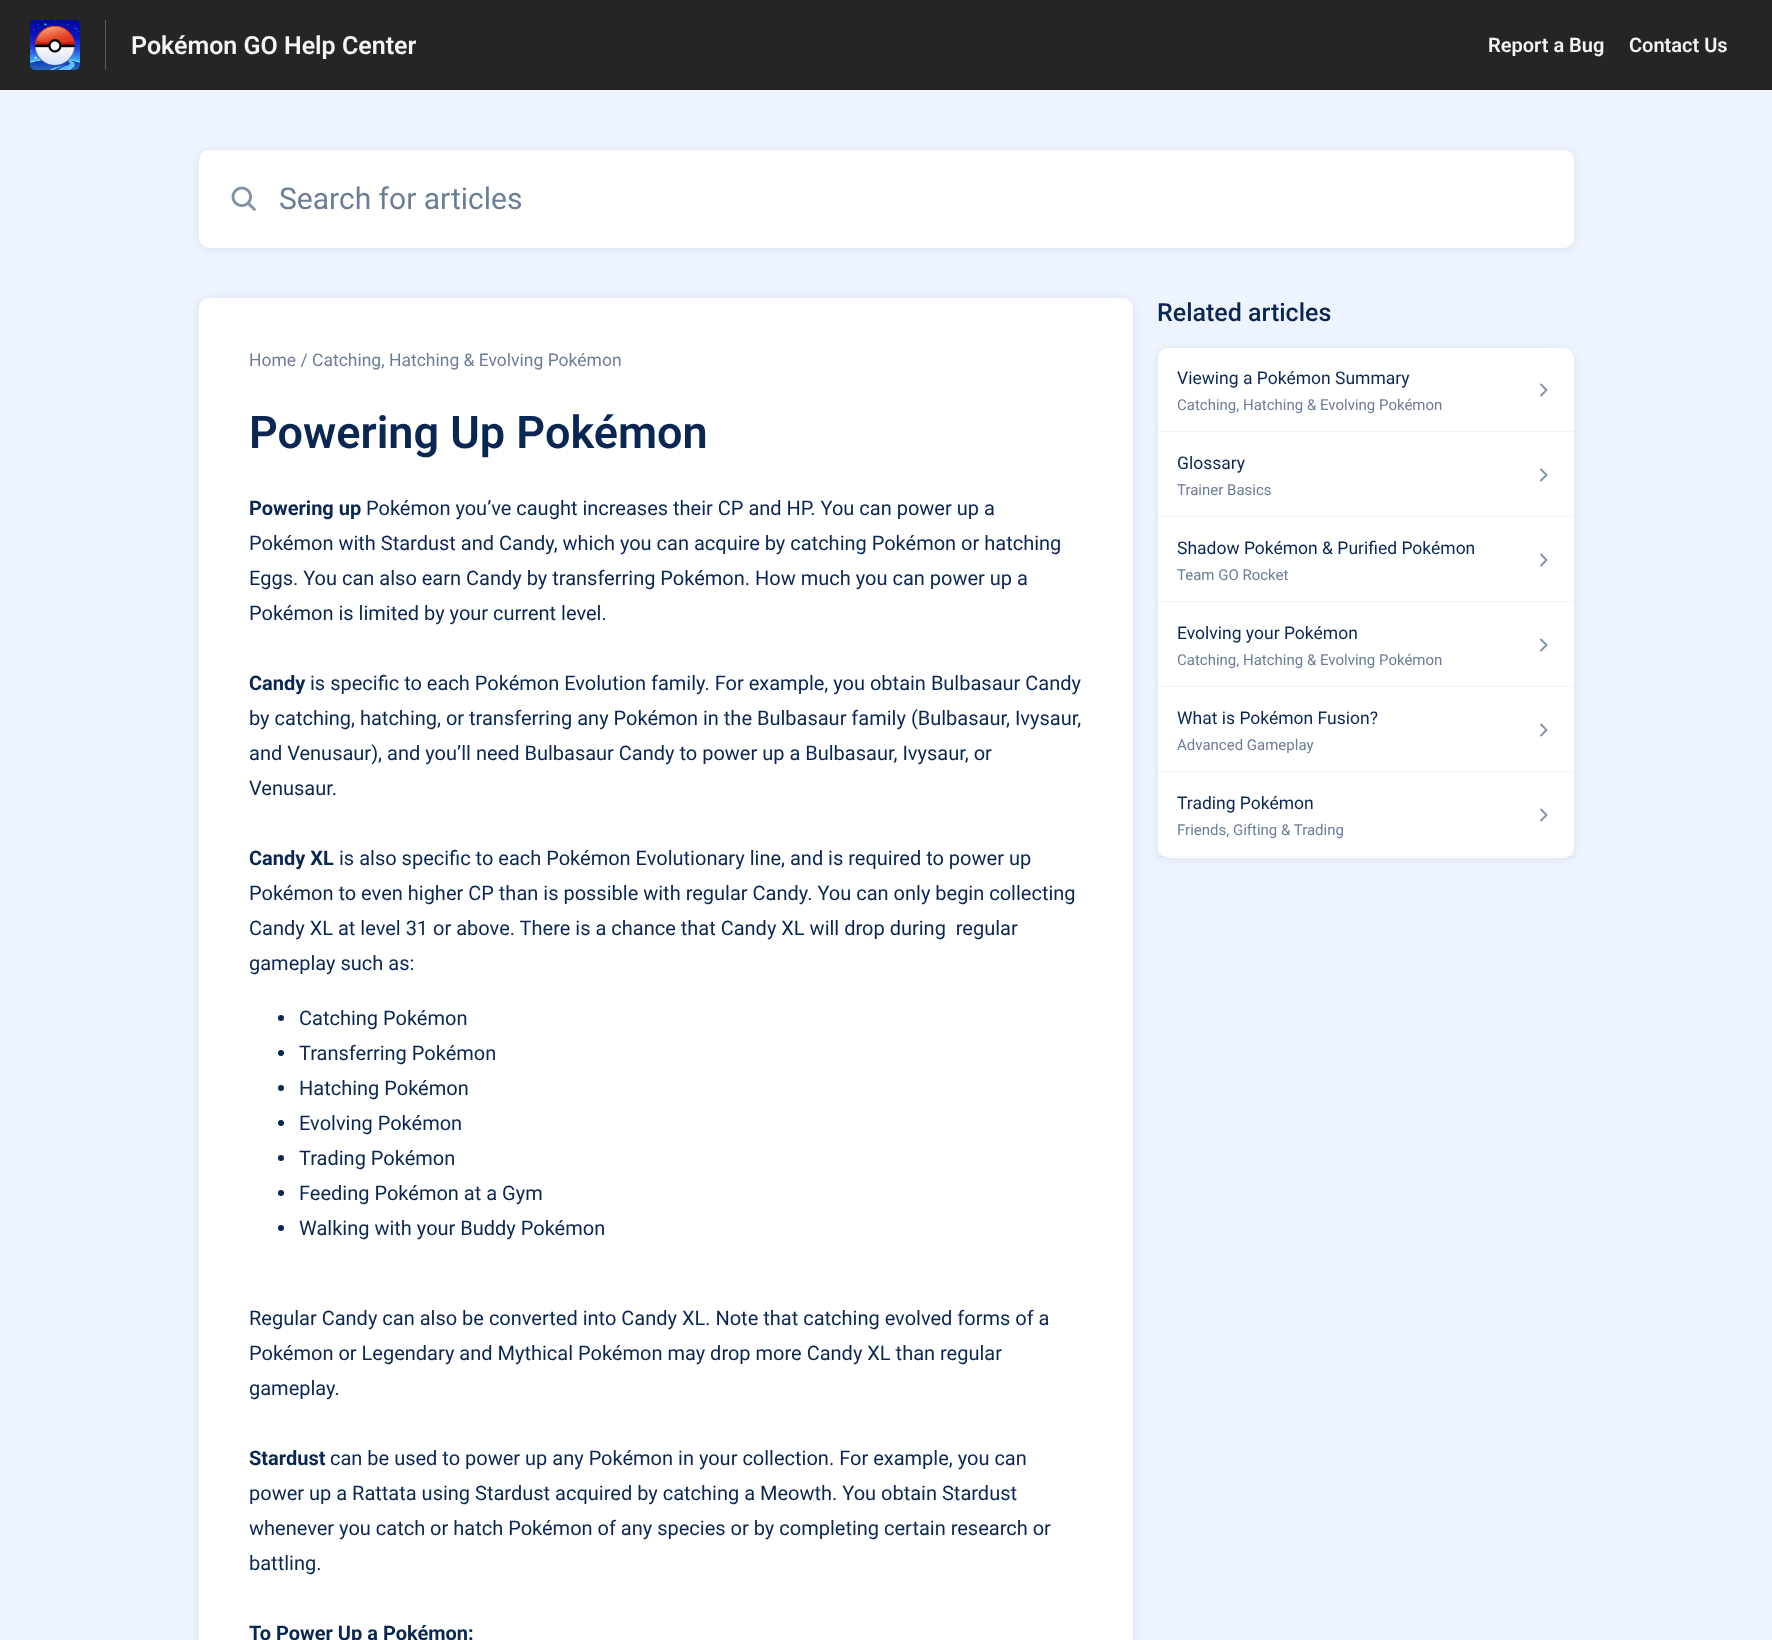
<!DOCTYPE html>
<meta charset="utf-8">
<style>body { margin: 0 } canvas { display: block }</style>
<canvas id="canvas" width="1772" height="1640"></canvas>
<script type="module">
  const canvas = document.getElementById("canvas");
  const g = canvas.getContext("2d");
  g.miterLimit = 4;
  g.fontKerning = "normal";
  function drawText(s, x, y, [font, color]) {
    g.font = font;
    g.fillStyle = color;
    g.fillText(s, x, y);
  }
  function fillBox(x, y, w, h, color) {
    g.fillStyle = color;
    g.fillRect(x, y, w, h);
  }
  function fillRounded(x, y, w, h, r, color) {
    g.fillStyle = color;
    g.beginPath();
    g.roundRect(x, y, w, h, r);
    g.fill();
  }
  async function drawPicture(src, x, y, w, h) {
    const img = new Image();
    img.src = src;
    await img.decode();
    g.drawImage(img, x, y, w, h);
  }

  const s1 = ["600 25px Roboto", "#F3F4F4"];
  const s2 = ["600 20px Roboto", "#F3F4F4"];
  const s3 = ["30px Roboto", "#6C7D97"];
  const s4 = ["17.5px Roboto", "#6C7D97"];
  const s5 = ["600 45px Roboto", "#0A2652"];
  const s6 = ["bold 20px Roboto", "#0A2652"];
  const s7 = ["20px Roboto", "#0A2652"];
  const s8 = ["500 25px Roboto", "#0A2652"];
  const s9 = ["17.5px Roboto", "#0A2652"];
  const s10 = ["15px Roboto", "#6C7D97"];

  fillBox(0, 0, 1772, 1640, "#EEF4FF");
  fillBox(0, 0, 1772, 90, "#252525");
  fillBox(105, 20, 1, 50, "#595959");
  await drawPicture("pic1.png", 30, 20, 50, 50);
  g.save();
  g.beginPath();
  g.rect(131, 30, 285, 30);
  g.clip();
  drawText("Pokémon GO Help Center", 131, 54, s1);
  g.restore();
  drawText("Report a Bug", 1488, 52, s2);
  drawText("Contact Us", 1629, 52, s2);
  g.fillStyle = "rgba(0, 0, 0, 0.08)";
  g.filter = "blur(5px)";
  g.beginPath();
  g.roundRect(199, 151, 1375, 98, 10);
  g.fill();
  g.filter = "none";
  fillRounded(199, 150, 1375, 98, 10, "#FFFFFF");
  await drawPicture("pic2.png", 231, 186, 25, 25);
  drawText("Search for articles", 279, 209, s3);
  g.fillStyle = "rgba(0, 0, 0, 0.08)";
  g.filter = "blur(5px)";
  g.beginPath();
  g.roundRect(199, 299, 934, 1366, 10);
  g.fill();
  g.filter = "none";
  g.fillStyle = "#FFFFFF";
  g.beginPath();
  g.roundRect(199, 298, 934, 1342, [10, 10, 0, 0]);
  g.fill();
  drawText("Home / Catching, Hatching & Evolving Pokémon", 249, 366, s4);
  drawText("Powering Up Pokémon", 249, 448, s5);
  drawText("Powering up", 249, 515, s6);
  drawText("Pokémon you’ve caught increases their CP and HP. You can power up a", 366, 515, s7);
  drawText("Pokémon with Stardust and Candy, which you can acquire by catching Pokémon or hatching", 249, 550, s7);
  drawText("Eggs. You can also earn Candy by transferring Pokémon. How much you can power up a", 249, 585, s7);
  drawText("Pokémon is limited by your current level.", 249, 620, s7);
  drawText("Candy", 249, 690, s6);
  drawText("is specific to each Pokémon Evolution family. For example, you obtain Bulbasaur Candy", 310, 690, s7);
  drawText("by catching, hatching, or transferring any Pokémon in the Bulbasaur family (Bulbasaur, Ivysaur,", 249, 725, s7);
  drawText("and Venusaur), and you’ll need Bulbasaur Candy to power up a Bulbasaur, Ivysaur, or", 249, 760, s7);
  drawText("Venusaur.", 249, 795, s7);
  drawText("Candy XL", 249, 865, s6);
  drawText("is also specific to each Pokémon Evolutionary line, and is required to power up", 339, 865, s7);
  drawText("Pokémon to even higher CP than is possible with regular Candy. You can only begin collecting", 249, 900, s7);
  drawText("Candy XL at level 31 or above. There is a chance that Candy XL will drop during  regular", 249, 935, s7);
  drawText("gameplay such as:", 249, 970, s7);
  g.beginPath();
  g.arc(281, 1018, 3, 0, Math.PI * 2);
  g.fill();
  drawText("Catching Pokémon", 299, 1025, s7);
  g.beginPath();
  g.arc(281, 1053, 3, 0, Math.PI * 2);
  g.fill();
  drawText("Transferring Pokémon", 299, 1060, s7);
  g.beginPath();
  g.arc(281, 1088, 3, 0, Math.PI * 2);
  g.fill();
  drawText("Hatching Pokémon", 299, 1095, s7);
  g.beginPath();
  g.arc(281, 1123, 3, 0, Math.PI * 2);
  g.fill();
  drawText("Evolving Pokémon", 299, 1130, s7);
  g.beginPath();
  g.arc(281, 1158, 3, 0, Math.PI * 2);
  g.fill();
  drawText("Trading Pokémon", 299, 1165, s7);
  g.beginPath();
  g.arc(281, 1193, 3, 0, Math.PI * 2);
  g.fill();
  drawText("Feeding Pokémon at a Gym", 299, 1200, s7);
  g.beginPath();
  g.arc(281, 1228, 3, 0, Math.PI * 2);
  g.fill();
  drawText("Walking with your Buddy Pokémon", 299, 1235, s7);
  drawText("Regular Candy can also be converted into Candy XL. Note that catching evolved forms of a", 249, 1325, s7);
  drawText("Pokémon or Legendary and Mythical Pokémon may drop more Candy XL than regular", 249, 1360, s7);
  drawText("gameplay.", 249, 1395, s7);
  drawText("Stardust", 249, 1465, s6);
  drawText("can be used to power up any Pokémon in your collection. For example, you can", 330, 1465, s7);
  drawText("power up a Rattata using Stardust acquired by catching a Meowth. You obtain Stardust", 249, 1500, s7);
  drawText("whenever you catch or hatch Pokémon of any species or by completing certain research or", 249, 1535, s7);
  drawText("battling.", 249, 1570, s7);
  drawText("To Power Up a Pokémon:", 249, 1640, s6);
  drawText("Related articles", 1157, 321, s8);
  g.fillStyle = "rgba(0, 0, 0, 0.08)";
  g.filter = "blur(5px)";
  g.beginPath();
  g.roundRect(1158, 349, 416, 510, 10);
  g.fill();
  g.filter = "none";
  fillRounded(1158, 348, 416, 510, 10, "#FFFFFF");
  fillBox(1158, 431, 416, 1, "#F3F4F6");
  drawText("Viewing a Pokémon Summary", 1177, 384, s9);
  drawText("Catching, Hatching & Evolving Pokémon", 1177, 410, s10);
  g.beginPath();
  g.moveTo(1541, 384.5);
  g.lineTo(1546.5, 390);
  g.lineTo(1541, 395.5);
  g.strokeStyle = "#8593A9";
  g.lineWidth = 1.9;
  g.lineCap = "round";
  g.lineJoin = "round";
  g.stroke();
  fillBox(1158, 516, 416, 1, "#F3F4F6");
  drawText("Glossary", 1177, 469, s9);
  drawText("Trainer Basics", 1177, 495, s10);
  g.beginPath();
  g.moveTo(1541, 469.5);
  g.lineTo(1546.5, 475);
  g.lineTo(1541, 480.5);
  g.stroke();
  fillBox(1158, 601, 416, 1, "#F3F4F6");
  drawText("Shadow Pokémon & Purified Pokémon", 1177, 554, s9);
  drawText("Team GO Rocket", 1177, 580, s10);
  g.beginPath();
  g.moveTo(1541, 554.5);
  g.lineTo(1546.5, 560);
  g.lineTo(1541, 565.5);
  g.stroke();
  fillBox(1158, 686, 416, 1, "#F3F4F6");
  drawText("Evolving your Pokémon", 1177, 639, s9);
  drawText("Catching, Hatching & Evolving Pokémon", 1177, 665, s10);
  g.beginPath();
  g.moveTo(1541, 639.5);
  g.lineTo(1546.5, 645);
  g.lineTo(1541, 650.5);
  g.stroke();
  fillBox(1158, 771, 416, 1, "#F3F4F6");
  drawText("What is Pokémon Fusion?", 1177, 724, s9);
  drawText("Advanced Gameplay", 1177, 750, s10);
  g.beginPath();
  g.moveTo(1541, 724.5);
  g.lineTo(1546.5, 730);
  g.lineTo(1541, 735.5);
  g.stroke();
  fillBox(1158, 856, 416, 1, "rgba(10, 38, 82, 0.05)");
  drawText("Trading Pokémon", 1177, 809, s9);
  drawText("Friends, Gifting & Trading", 1177, 835, s10);
  g.beginPath();
  g.moveTo(1541, 809.5);
  g.lineTo(1546.5, 815);
  g.lineTo(1541, 820.5);
  g.stroke();
</script>
